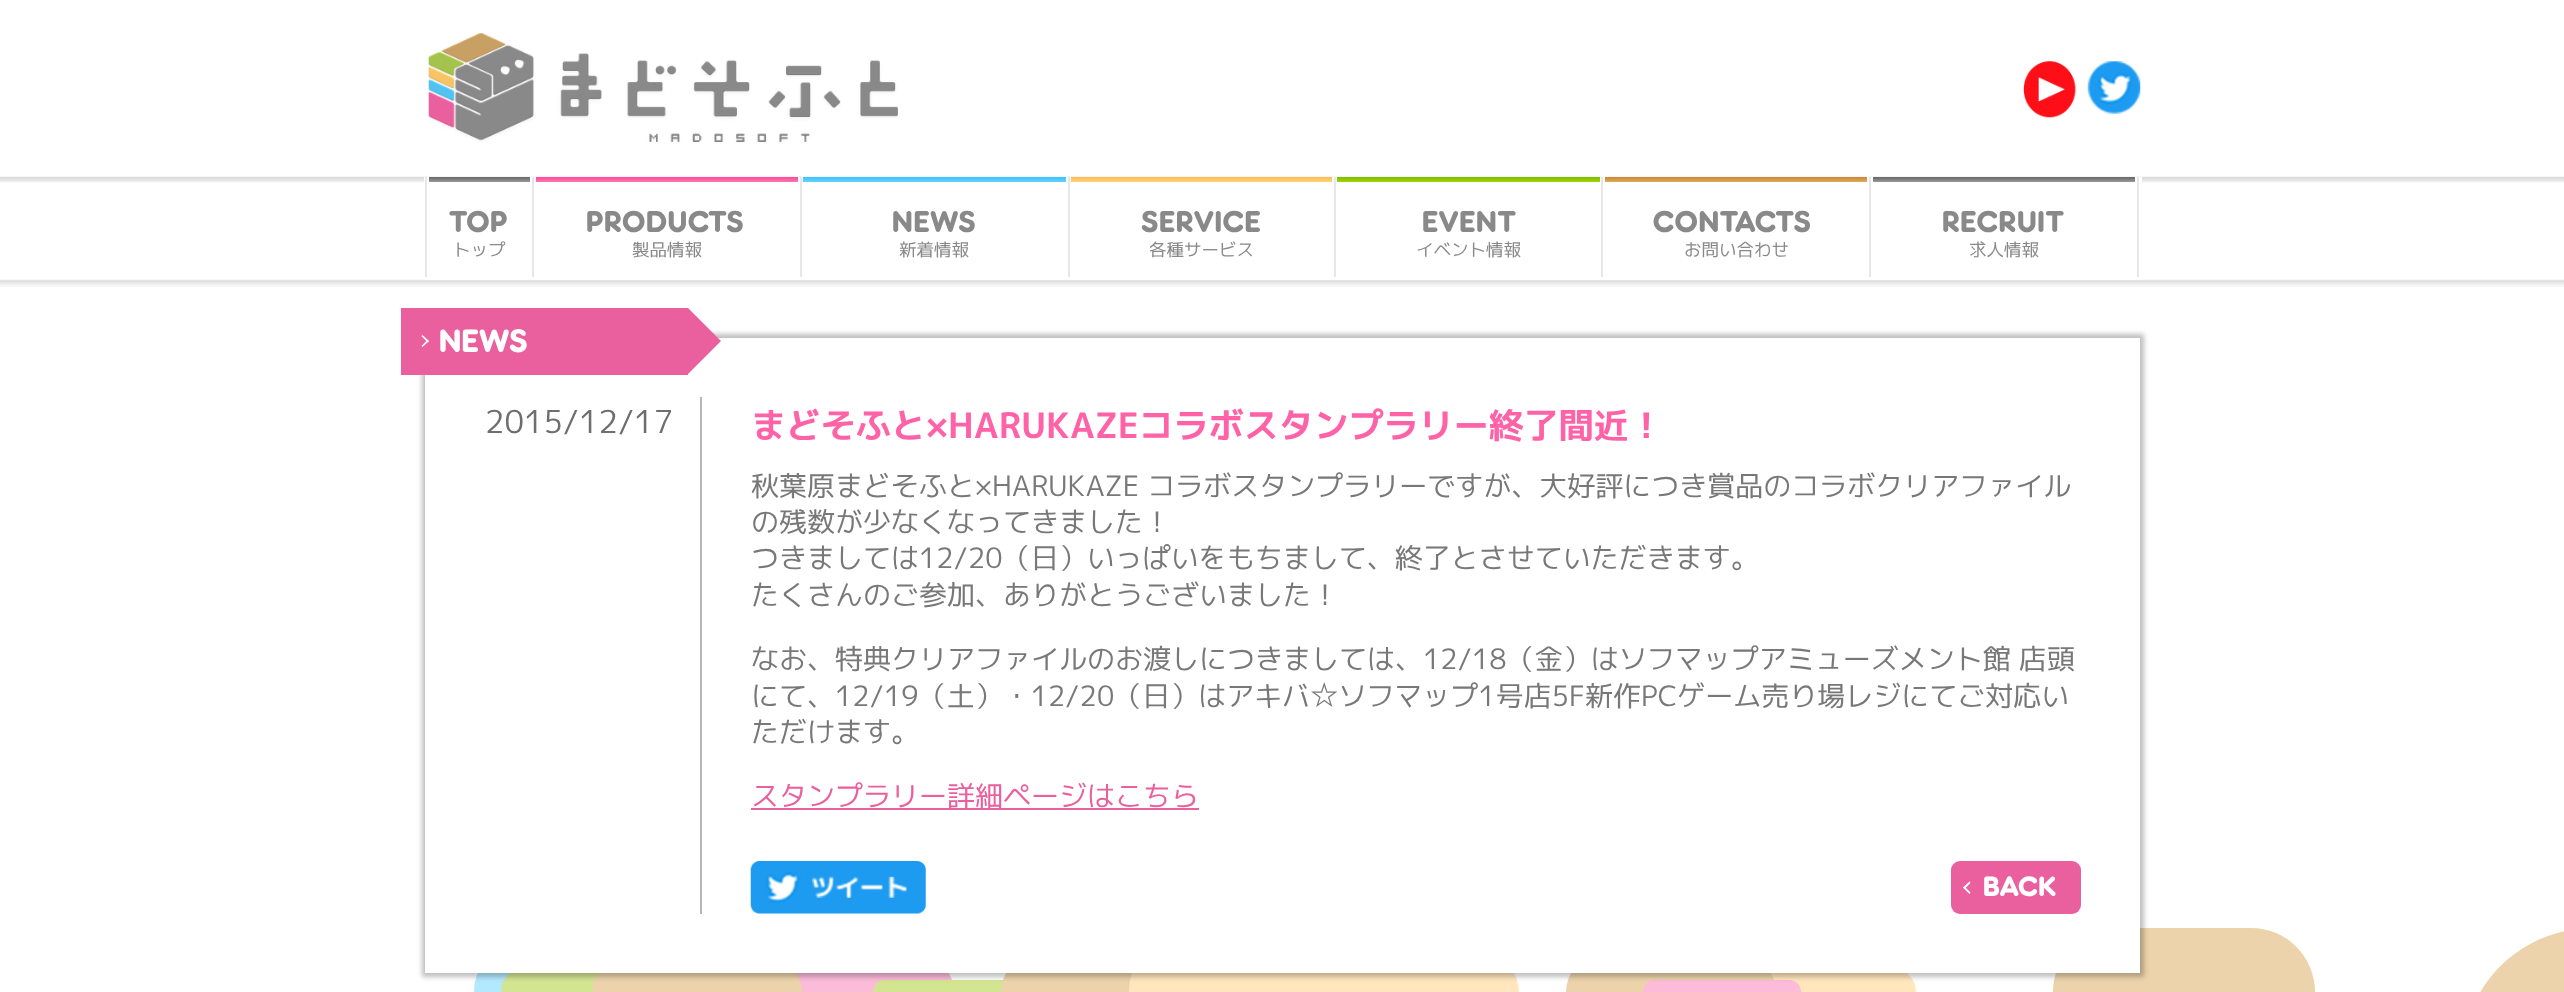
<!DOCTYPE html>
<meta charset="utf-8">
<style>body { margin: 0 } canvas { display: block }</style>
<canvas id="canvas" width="2564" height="992"></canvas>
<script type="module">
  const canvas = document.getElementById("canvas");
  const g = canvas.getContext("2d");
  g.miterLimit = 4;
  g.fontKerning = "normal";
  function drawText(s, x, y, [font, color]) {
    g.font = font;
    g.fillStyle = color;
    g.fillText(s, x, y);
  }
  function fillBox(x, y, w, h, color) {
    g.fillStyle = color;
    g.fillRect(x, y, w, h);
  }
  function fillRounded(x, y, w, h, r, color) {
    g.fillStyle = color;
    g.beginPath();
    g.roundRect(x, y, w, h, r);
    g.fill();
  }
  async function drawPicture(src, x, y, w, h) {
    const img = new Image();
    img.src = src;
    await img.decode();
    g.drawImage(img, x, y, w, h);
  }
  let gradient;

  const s1 = ["500 28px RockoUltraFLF", "#898989"];
  const s2 = ["17.5px 'M PLUS 1p'", "#898989"];
  const s3 = ["500 30px RockoUltraFLF", "#FFFFFF"];
  const s4 = ["31.5px 'M PLUS 1p'", "#6E6E6E"];
  const s5 = ["bold 35px 'M PLUS 1p'", "#FF62A7"];
  const s6 = ["28px 'M PLUS 1p'", "#787878"];
  const s7 = ["28px 'M PLUS 1p'", "#EA609E"];
  const s8 = ["500 26px RockoUltraFLF", "#FFFFFF"];

  fillBox(0, 0, 2564, 992, "#FFFFFF");
  await drawPicture("pic1.png", 428, 33, 470, 110);
  await drawPicture("pic2.png", 2023, 61, 53, 57);
  await drawPicture("pic3.png", 2087, 61, 54, 53);
  await drawPicture("pic4.png", 0, 176, 2564, 111);
  fillBox(424, 177, 1718, 103, "#FFFFFF");
  fillBox(425, 177, 2, 100, "#E7E7E7");
  gradient = g.createLinearGradient(480, 177, 480, 182);
  gradient.addColorStop(0, "#676767");
  gradient.addColorStop(1, "#989898");
  g.fillStyle = gradient;
  g.fillRect(429, 177, 101, 5);
  g.letterSpacing = "0.75px";
  drawText("TOP", 449, 232, s1);
  g.letterSpacing = "0px";
  drawText("トップ", 453, 256, s2);
  fillBox(532, 177, 2, 100, "#E7E7E7");
  gradient = g.createLinearGradient(667, 177, 667, 182);
  gradient.addColorStop(0, "#FF4A94");
  gradient.addColorStop(1, "#FF75B7");
  g.fillStyle = gradient;
  g.fillRect(536, 177, 262, 5);
  g.letterSpacing = "0.75px";
  drawText("PRODUCTS", 586, 232, s1);
  g.letterSpacing = "0px";
  drawText("製品情報", 632, 256, s2);
  fillBox(800, 177, 2, 100, "#E7E7E7");
  gradient = g.createLinearGradient(935, 177, 935, 182);
  gradient.addColorStop(0, "#3EC0FF");
  gradient.addColorStop(1, "#62D4FF");
  g.fillStyle = gradient;
  g.fillRect(803, 177, 263, 5);
  g.letterSpacing = "0.75px";
  drawText("NEWS", 892, 232, s1);
  g.letterSpacing = "0px";
  drawText("新着情報", 899, 256, s2);
  fillBox(1068, 177, 2, 100, "#E7E7E7");
  gradient = g.createLinearGradient(1201, 177, 1201, 182);
  gradient.addColorStop(0, "#FFBC4F");
  gradient.addColorStop(1, "#FFD27C");
  g.fillStyle = gradient;
  g.fillRect(1071, 177, 261, 5);
  g.letterSpacing = "0.75px";
  drawText("SERVICE", 1141, 232, s1);
  g.letterSpacing = "0px";
  drawText("各種サービス", 1149, 256, s2);
  fillBox(1334, 177, 2, 100, "#E7E7E7");
  gradient = g.createLinearGradient(1468, 177, 1468, 182);
  gradient.addColorStop(0, "#78BE00");
  gradient.addColorStop(1, "#A4D300");
  g.fillStyle = gradient;
  g.fillRect(1337, 177, 263, 5);
  g.letterSpacing = "0.75px";
  drawText("EVENT", 1422, 232, s1);
  g.letterSpacing = "0px";
  drawText("イベント情報", 1416, 256, s2);
  fillBox(1601, 177, 2, 100, "#E7E7E7");
  gradient = g.createLinearGradient(1736, 177, 1736, 182);
  gradient.addColorStop(0, "#CD8638");
  gradient.addColorStop(1, "#DDAD58");
  g.fillStyle = gradient;
  g.fillRect(1605, 177, 262, 5);
  g.letterSpacing = "0.75px";
  drawText("CONTACTS", 1653, 232, s1);
  g.letterSpacing = "0px";
  drawText("お問い合わせ", 1684, 256, s2);
  fillBox(1869, 177, 2, 100, "#E7E7E7");
  gradient = g.createLinearGradient(2004, 177, 2004, 182);
  gradient.addColorStop(0, "#676767");
  gradient.addColorStop(1, "#989898");
  g.fillStyle = gradient;
  g.fillRect(1873, 177, 262, 5);
  g.letterSpacing = "0.75px";
  drawText("RECRUIT", 1942, 232, s1);
  g.letterSpacing = "0px";
  drawText("求人情報", 1969, 256, s2);
  fillBox(2137, 177, 2, 100, "#E7E7E7");
  g.fillStyle = "#B3E9FF";
  g.beginPath();
  g.roundRect(474, 942, 237, 50, [118, 118, 0, 0]);
  g.fill();
  g.fillStyle = "#FCBBD9";
  g.beginPath();
  g.roundRect(744, 954, 210, 38, [105, 105, 0, 0]);
  g.fill();
  g.fillStyle = "#D3E591";
  g.beginPath();
  g.roundRect(873, 980, 158, 12, [79, 79, 0, 0]);
  g.fill();
  g.fillStyle = "#ECD3AB";
  g.beginPath();
  g.roundRect(1001, 954, 210, 38, [105, 105, 0, 0]);
  g.fill();
  g.fillStyle = "#FFE6BD";
  g.beginPath();
  g.roundRect(1309, 954, 210, 38, [105, 105, 0, 0]);
  g.fill();
  g.beginPath();
  g.roundRect(1129, 928, 262, 64, [131, 131, 0, 0]);
  g.fill();
  g.beginPath();
  g.roundRect(1603, 942, 236, 50, [118, 118, 0, 0]);
  g.fill();
  g.fillStyle = "#ECD3AB";
  g.beginPath();
  g.roundRect(2053, 928, 262, 64, [131, 131, 0, 0]);
  g.fill();
  g.fillStyle = "#D3E591";
  g.beginPath();
  g.roundRect(501, 968, 183, 24, [91.5, 91.5, 0, 0]);
  g.fill();
  g.fillStyle = "#ECD3AB";
  g.beginPath();
  g.roundRect(592, 954, 210, 38, [105, 105, 0, 0]);
  g.fill();
  g.fillStyle = "#FFE6BD";
  g.beginPath();
  g.roundRect(1733, 968, 183, 24, [91.5, 91.5, 0, 0]);
  g.fill();
  g.fillStyle = "#ECD3AB";
  g.beginPath();
  g.roundRect(1566, 954, 210, 38, [105, 105, 0, 0]);
  g.fill();
  g.fillStyle = "#FCBBD9";
  g.beginPath();
  g.roundRect(1643, 980, 158, 12, [79, 79, 0, 0]);
  g.fill();
  g.fillStyle = "rgba(0, 0, 0, 0.25)";
  g.filter = "blur(2.5px)";
  g.beginPath();
  g.rect(422, 334, 1722, 643);
  g.fill();
  g.filter = "none";
  fillBox(425, 338, 1715, 635, "#FFFFFF");
  fillBox(401, 308, 287, 67, "#EA609E");
  g.fillStyle = "#FFFFFF";
  g.beginPath();
  g.moveTo(422.5, 335);
  g.lineTo(429, 341);
  g.lineTo(427.5, 342.5);
  g.lineTo(421.5, 336);
  g.closePath();
  g.fill();
  g.beginPath();
  g.moveTo(427.5, 340);
  g.lineTo(429, 341);
  g.lineTo(422.5, 347);
  g.lineTo(421.5, 346);
  g.closePath();
  g.fill();
  g.letterSpacing = "0.5px";
  drawText("NEWS", 439, 352, s3);
  g.fillStyle = "#EA609E";
  g.beginPath();
  g.moveTo(688, 374);
  g.lineTo(688, 308);
  g.lineTo(721, 341);
  g.closePath();
  g.fill();
  fillBox(700, 397, 2, 517, "#B6B6B6");
  g.letterSpacing = "0px";
  drawText("2015/12/17", 485, 433, s4);
  drawText("まどそふと×HARUKAZEコラボスタンプラリー終了間近！", 751, 438, s5);
  drawText("秋葉原まどそふと×HARUKAZE コラボスタンプラリーですが、大好評につき賞品のコラボクリアファイル", 751, 496, s6);
  drawText("の残数が少なくなってきました！", 751, 532, s6);
  drawText("つきましては12/20（日）いっぱいをもちまして、終了とさせていただきます。", 751, 568, s6);
  drawText("たくさんのご参加、ありがとうございました！", 751, 605, s6);
  drawText("なお、特典クリアファイルのお渡しにつきましては、12/18（金）はソフマップアミューズメント館 店頭", 751, 669, s6);
  drawText("にて、12/19（土）・12/20（日）はアキバ☆ソフマップ1号店5F新作PCゲーム売り場レジにてご対応い", 751, 706, s6);
  drawText("ただけます。", 751, 742, s6);
  fillBox(751, 808, 448, 2, "#EA609E");
  drawText("スタンプラリー詳細ページはこちら", 751, 806, s7);
  await drawPicture("pic5.png", 750, 861, 176, 53);
  fillRounded(1951, 861, 130, 53, 9, "#EA609E");
  g.fillStyle = "#FFFFFF";
  g.beginPath();
  g.moveTo(1969.5, 894);
  g.lineTo(1963, 887.5);
  g.lineTo(1964.5, 886.5);
  g.lineTo(1970.5, 892.5);
  g.closePath();
  g.fill();
  g.beginPath();
  g.moveTo(1964.5, 889);
  g.lineTo(1963, 887.5);
  g.lineTo(1969.5, 881.5);
  g.lineTo(1970.5, 883);
  g.closePath();
  g.fill();
  g.letterSpacing = "0.5px";
  drawText("BACK", 1983, 896, s8);
  g.fillStyle = "#ECD3AB";
  g.beginPath();
  g.moveTo(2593, 928);
  g.lineTo(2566, 928);
  g.lineTo(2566, 992);
  g.lineTo(2462, 992);
  g.lineTo(2462, 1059);
  g.bezierCurveTo(2462, 986.5, 2520.5, 928, 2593, 928);
  g.closePath();
  g.fill();
</script>
